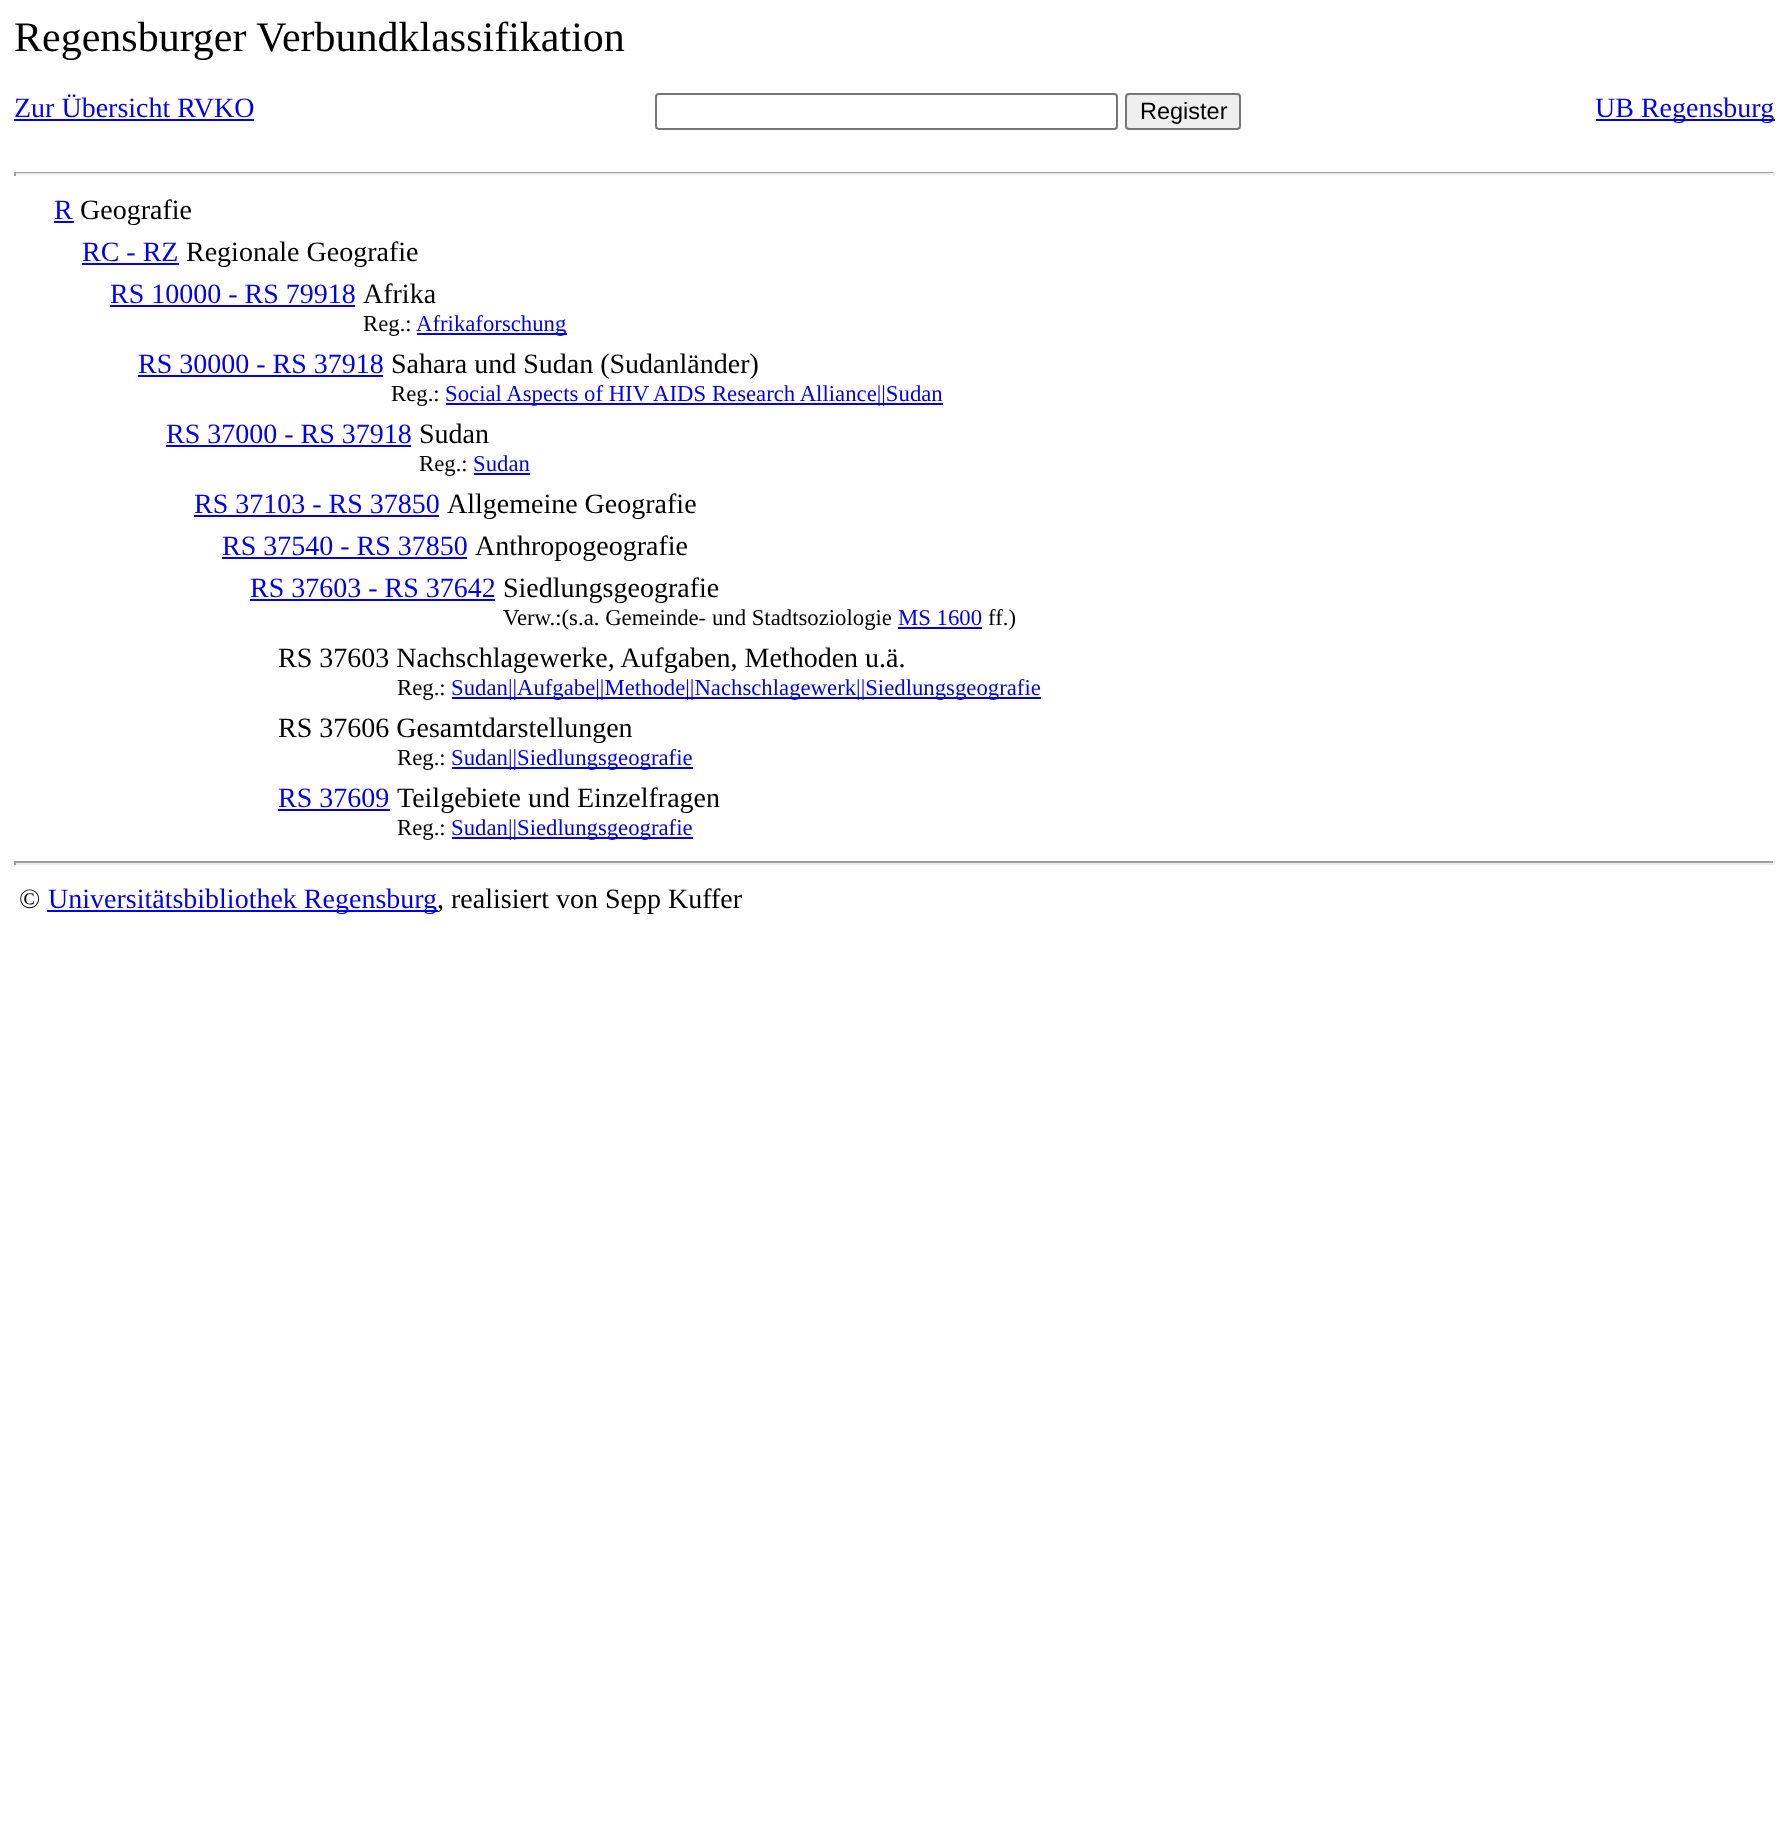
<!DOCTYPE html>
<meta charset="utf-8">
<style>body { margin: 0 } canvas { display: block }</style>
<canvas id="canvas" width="1788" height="1832"></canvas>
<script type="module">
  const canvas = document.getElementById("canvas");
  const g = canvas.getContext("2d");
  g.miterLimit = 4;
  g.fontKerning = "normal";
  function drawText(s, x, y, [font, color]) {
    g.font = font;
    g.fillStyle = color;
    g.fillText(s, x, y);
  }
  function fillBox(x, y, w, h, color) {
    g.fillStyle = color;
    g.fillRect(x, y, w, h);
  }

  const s1 = ["42px Liberation Serif", "#000000"];
  const s2 = ["28px Liberation Serif", "#0000EE"];
  const s3 = ["23.5px Liberation Sans", "#000000"];
  const s4 = ["28px Liberation Serif", "#000000"];
  const s5 = ["22.75px Liberation Serif", "#000000"];
  const s6 = ["22.75px Liberation Serif", "#0000EE"];

  fillBox(0, 0, 1788, 1832, "#FFFFFF");
  drawText("Regensburger Verbundklassifikation", 14, 51, s1);
  drawText("Zur Übersicht RVKO", 14, 117, s2);
  fillBox(14, 119, 240, 2, "#0000EE");
  g.beginPath();
  g.roundRect(656, 94, 461, 35, 3);
  g.strokeStyle = "#767676";
  g.lineWidth = 2;
  g.stroke();
  g.fillStyle = "#EFEFEF";
  g.beginPath();
  g.roundRect(1126, 94, 114, 35, 3);
  g.fill();
  g.stroke();
  drawText("Register", 1140, 119, s3);
  fillBox(1596, 119, 179, 2, "#0000EE");
  drawText("UB Regensburg", 1595, 117, s2);
  fillBox(14, 172, 1761, 1, "#9F9F9F");
  fillBox(1773, 172, 2, 4, "#EEEEEE");
  fillBox(14, 173, 1761, 2, "#EEEEEE");
  fillBox(14, 172, 2, 4, "#9F9F9F");
  drawText("R", 54, 219, s2);
  fillBox(54, 221, 20, 2, "#0000EE");
  drawText("Geografie", 80, 219, s4);
  drawText("RC - RZ", 82, 261, s2);
  fillBox(82, 263, 97, 2, "#0000EE");
  drawText("Regionale Geografie", 186, 261, s4);
  drawText("RS 10000 - RS 79918", 110, 303, s2);
  fillBox(110, 305, 245, 2, "#0000EE");
  drawText("Afrika", 363, 303, s4);
  drawText("Reg.:", 363, 331, s5);
  fillBox(417, 333, 150, 2, "#0000EE");
  drawText("Afrikaforschung", 416, 331, s6);
  drawText("RS 30000 - RS 37918", 138, 373, s2);
  fillBox(138, 375, 245, 2, "#0000EE");
  drawText("Sahara und Sudan (Sudanländer)", 391, 373, s4);
  drawText("Reg.:", 391, 401, s5);
  fillBox(446, 403, 497, 2, "#0000EE");
  drawText("Social Aspects of HIV AIDS Research Alliance||Sudan", 445, 401, s6);
  drawText("RS 37000 - RS 37918", 166, 443, s2);
  fillBox(166, 445, 245, 2, "#0000EE");
  drawText("Sudan", 419, 443, s4);
  drawText("Reg.:", 419, 471, s5);
  drawText("Sudan", 473, 471, s6);
  fillBox(474, 473, 56, 2, "#0000EE");
  drawText("RS 37103 - RS 37850", 194, 513, s2);
  fillBox(194, 515, 245, 2, "#0000EE");
  drawText("Allgemeine Geografie", 447, 513, s4);
  drawText("RS 37540 - RS 37850", 222, 555, s2);
  fillBox(222, 557, 245, 2, "#0000EE");
  drawText("Anthropogeografie", 475, 555, s4);
  drawText("RS 37603 - RS 37642", 250, 597, s2);
  fillBox(250, 599, 245, 2, "#0000EE");
  drawText("Siedlungsgeografie", 503, 597, s4);
  drawText("Verw.:(s.a. Gemeinde- und Stadtsoziologie", 503, 625, s5);
  drawText("MS 1600", 898, 625, s6);
  fillBox(898, 627, 84, 2, "#0000EE");
  drawText("ff.)", 988, 625, s5);
  drawText("RS 37603 Nachschlagewerke, Aufgaben, Methoden u.ä.", 278, 667, s4);
  drawText("Reg.:", 397, 695, s5);
  fillBox(452, 697, 589, 2, "#0000EE");
  drawText("Sudan||Aufgabe||Methode||Nachschlagewerk||Siedlungsgeografie", 451, 695, s6);
  drawText("RS 37606 Gesamtdarstellungen", 278, 737, s4);
  drawText("Reg.:", 397, 765, s5);
  fillBox(452, 767, 241, 2, "#0000EE");
  drawText("Sudan||Siedlungsgeografie", 451, 765, s6);
  drawText("RS 37609", 278, 807, s2);
  fillBox(278, 809, 112, 2, "#0000EE");
  drawText("Teilgebiete und Einzelfragen", 397, 807, s4);
  drawText("Reg.:", 397, 835, s5);
  fillBox(452, 837, 241, 2, "#0000EE");
  drawText("Sudan||Siedlungsgeografie", 451, 835, s6);
  fillBox(14, 861, 1761, 2, "#9F9F9F");
  fillBox(1773, 861, 2, 4, "#EEEEEE");
  fillBox(14, 863, 1761, 2, "#EEEEEE");
  fillBox(14, 861, 2, 4, "#9F9F9F");
  drawText("©", 19, 908, s4);
  fillBox(47, 910, 391, 2, "#0000EE");
  drawText("Universitätsbibliothek Regensburg", 48, 908, s2);
  drawText(", realisiert von Sepp Kuffer", 437, 908, s4);
</script>
